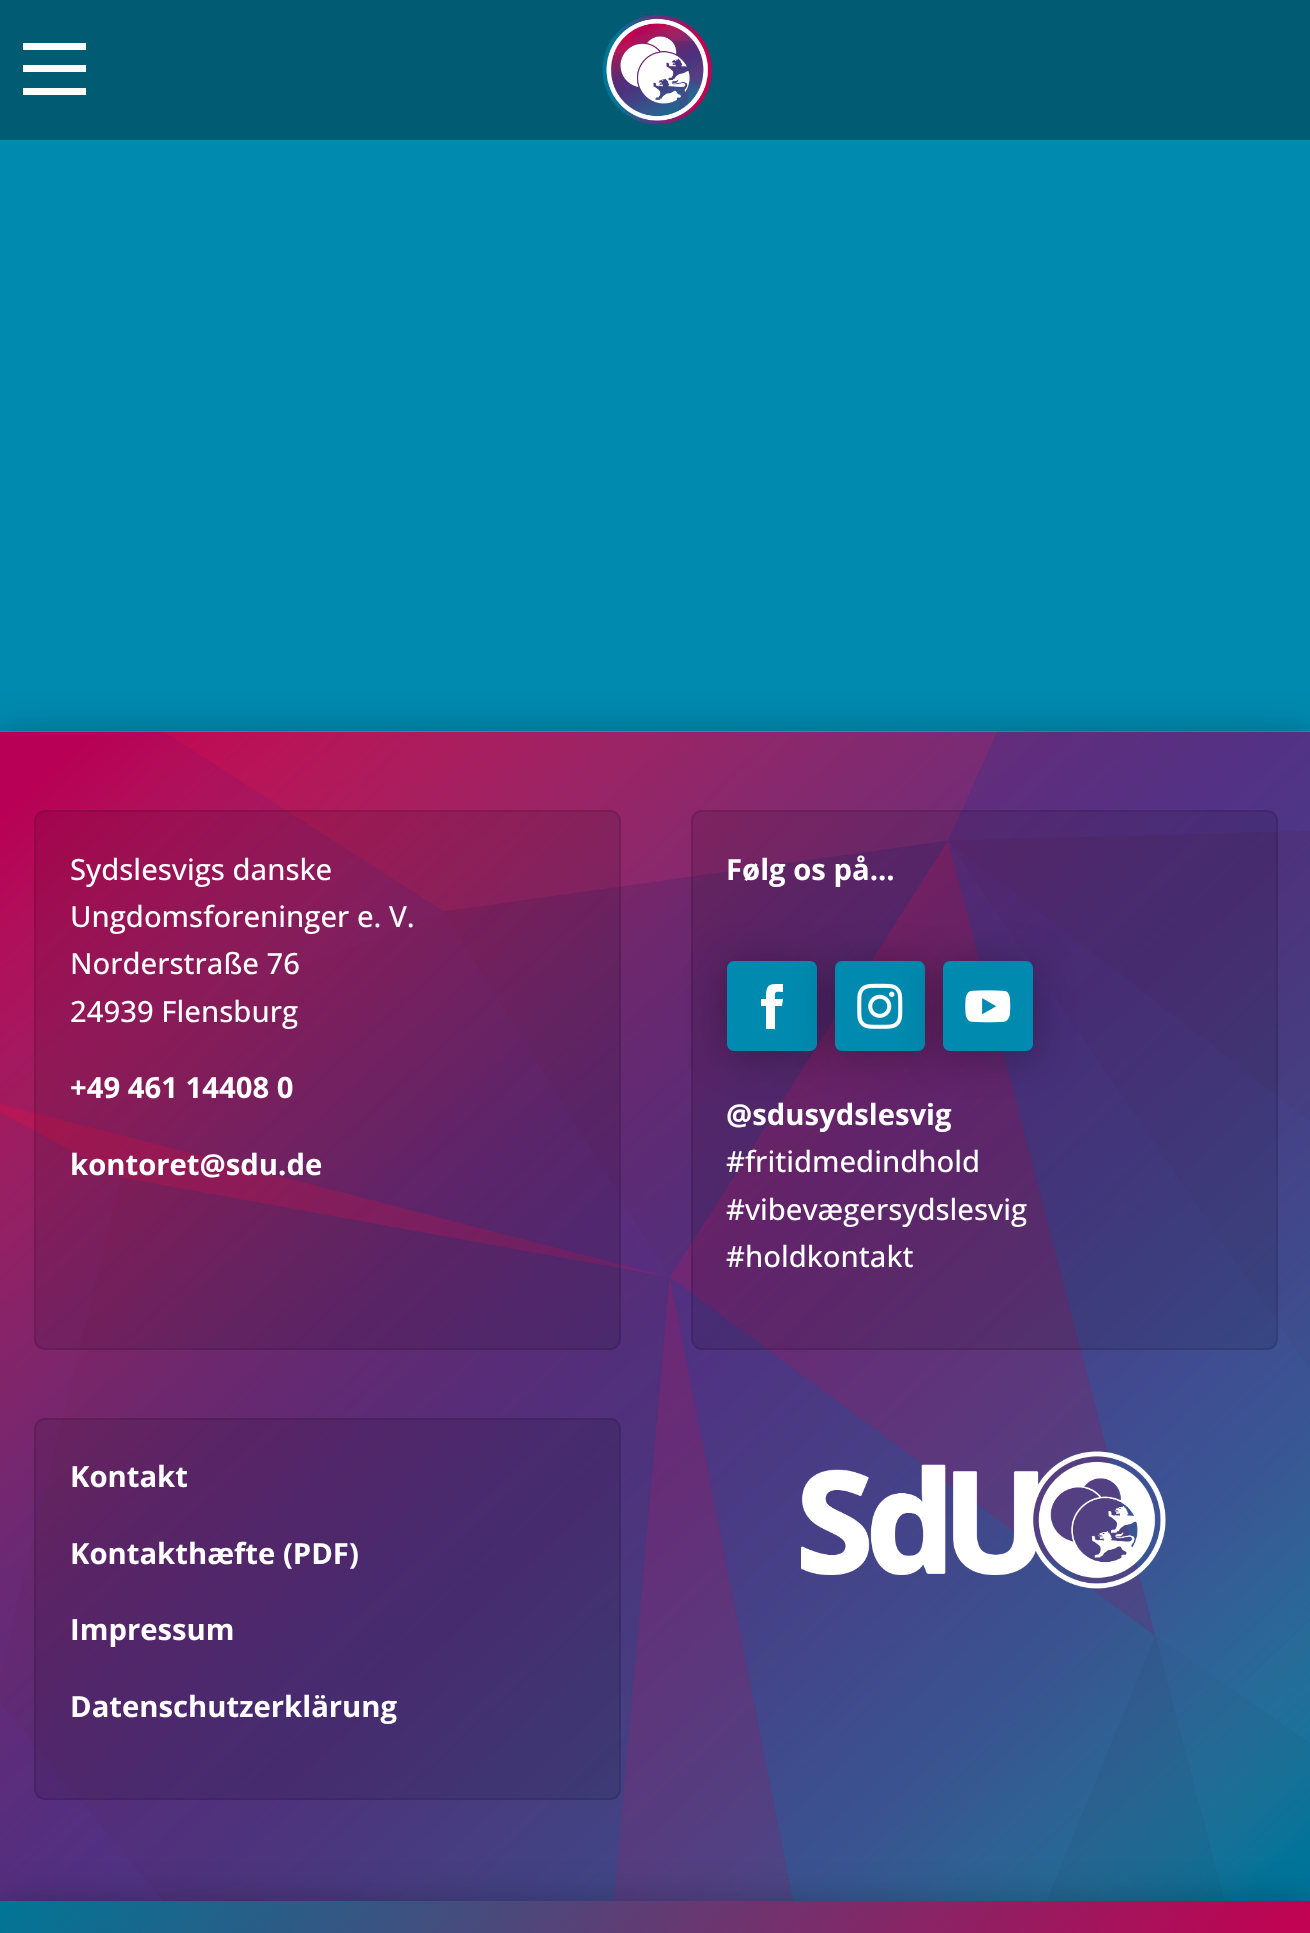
<!DOCTYPE html>
<meta charset="utf-8">
<style>body { margin: 0 } canvas { display: block }</style>
<canvas id="canvas" width="1310" height="1933"></canvas>
<script type="module">
  const canvas = document.getElementById("canvas");
  const g = canvas.getContext("2d");
  g.miterLimit = 4;
  g.fontKerning = "normal";
  function drawText(s, x, y, [font, color]) {
    g.font = font;
    g.fillStyle = color;
    g.fillText(s, x, y);
  }
  function fillBox(x, y, w, h, color) {
    g.fillStyle = color;
    g.fillRect(x, y, w, h);
  }
  function fillRounded(x, y, w, h, r, color) {
    g.fillStyle = color;
    g.beginPath();
    g.roundRect(x, y, w, h, r);
    g.fill();
  }
  async function drawPicture(src, x, y, w, h) {
    const img = new Image();
    img.src = src;
    await img.decode();
    g.drawImage(img, x, y, w, h);
  }
  let gradient;

  const s1 = ["500 29.25px Open Sans", "#FFFFFF"];
  const s2 = ["bold 29.25px Open Sans", "#FFFFFF"];

  fillBox(0, 0, 1310, 1933, "#FFFFFF");
  fillBox(0, 0, 1310, 140, "#005B73");
  fillBox(23, 65, 63, 7, "#FFFFFF");
  fillBox(23, 43, 63, 7, "#FFFFFF");
  fillBox(23, 88, 63, 7, "#FFFFFF");
  await drawPicture("pic1.png", 602, 15, 110, 110);
  fillBox(0, 140, 1310, 591, "#008AAF");
  g.fillStyle = "rgba(0, 0, 0, 0.3)";
  g.filter = "blur(20px)";
  g.beginPath();
  g.rect(0, 736, 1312, 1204);
  g.fill();
  g.filter = "none";
  await drawPicture("pic2.png", 0, 731, 1310, 1170);
  fillRounded(34, 810, 587, 540, 11, "rgba(0, 0, 0, 0.1)");
  g.beginPath();
  g.roundRect(35, 811, 585, 538, 10);
  g.strokeStyle = "rgba(0, 0, 0, 0.1)";
  g.lineWidth = 2;
  g.stroke();
  drawText("Sydslesvigs danske", 70, 880, s1);
  drawText("Ungdomsforeninger e. V.", 70, 927, s1);
  drawText("Norderstraße 76", 70, 974, s1);
  drawText("24939 Flensburg", 70, 1022, s1);
  drawText("+49 461 14408 0", 70, 1098, s2);
  drawText("kontoret@sdu.de", 70, 1175, s2);
  fillRounded(691, 810, 587, 540, 11, "rgba(0, 0, 0, 0.1)");
  g.beginPath();
  g.roundRect(692, 811, 585, 538, 10);
  g.stroke();
  drawText("Følg os på...", 726, 880, s2);
  g.fillStyle = "rgba(0, 0, 0, 0.3)";
  g.filter = "blur(20px)";
  g.beginPath();
  g.roundRect(727, 965, 90, 90, 7);
  g.fill();
  g.filter = "none";
  fillRounded(727, 961, 90, 90, 7, "#008AAF");
  g.fillStyle = "rgba(0, 0, 0, 0.3)";
  g.filter = "blur(20px)";
  g.beginPath();
  g.roundRect(835, 965, 90, 90, 7);
  g.fill();
  g.filter = "none";
  g.fillStyle = "#FFFFFF";
  g.beginPath();
  g.moveTo(766, 1029);
  g.lineTo(775, 1029);
  g.lineTo(775, 1006);
  g.lineTo(782, 1006);
  g.lineTo(783, 999);
  g.lineTo(775, 999);
  g.bezierCurveTo(775, 990, 775, 992, 783, 992);
  g.lineTo(783, 984);
  g.bezierCurveTo(769, 984, 766, 983, 766, 999);
  g.lineTo(761, 999);
  g.lineTo(761, 1006);
  g.lineTo(766, 1006);
  g.closePath();
  g.fill();
  fillRounded(835, 961, 90, 90, 7, "#008AAF");
  g.fillStyle = "rgba(0, 0, 0, 0.3)";
  g.filter = "blur(20px)";
  g.beginPath();
  g.roundRect(943, 965, 90, 90, 7);
  g.fill();
  g.filter = "none";
  await drawPicture("pic3.png", 857, 983, 46, 46);
  fillRounded(943, 961, 90, 90, 7, "#008AAF");
  await drawPicture("pic4.png", 965, 990, 46, 33);
  drawText("@sdusydslesvig", 726, 1125, s2);
  drawText("#fritidmedindhold", 726, 1172, s1);
  drawText("#vibevægersydslesvig", 726, 1220, s1);
  drawText("#holdkontakt", 726, 1267, s1);
  fillRounded(34, 1418, 587, 382, 11, "rgba(0, 0, 0, 0.1)");
  g.beginPath();
  g.roundRect(35, 1419, 585, 380, 10);
  g.stroke();
  drawText("Kontakt", 70, 1487, s2);
  drawText("Kontakthæfte (PDF)", 70, 1564, s2);
  drawText("Impressum", 70, 1640, s2);
  drawText("Datenschutzerklärung", 70, 1717, s2);
  await drawPicture("pic5.png", 801, 1451, 365, 138);
  g.fillStyle = "rgba(0, 0, 0, 0.3)";
  g.filter = "blur(20px)";
  g.beginPath();
  g.rect(0, 1906, 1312, 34);
  g.fill();
  g.filter = "none";
  gradient = g.createLinearGradient(1082, 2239, 229, 1597);
  gradient.addColorStop(0, "#C30151");
  gradient.addColorStop(1, "#007696");
  g.fillStyle = gradient;
  g.fillRect(0, 1901, 1310, 32);
</script>
